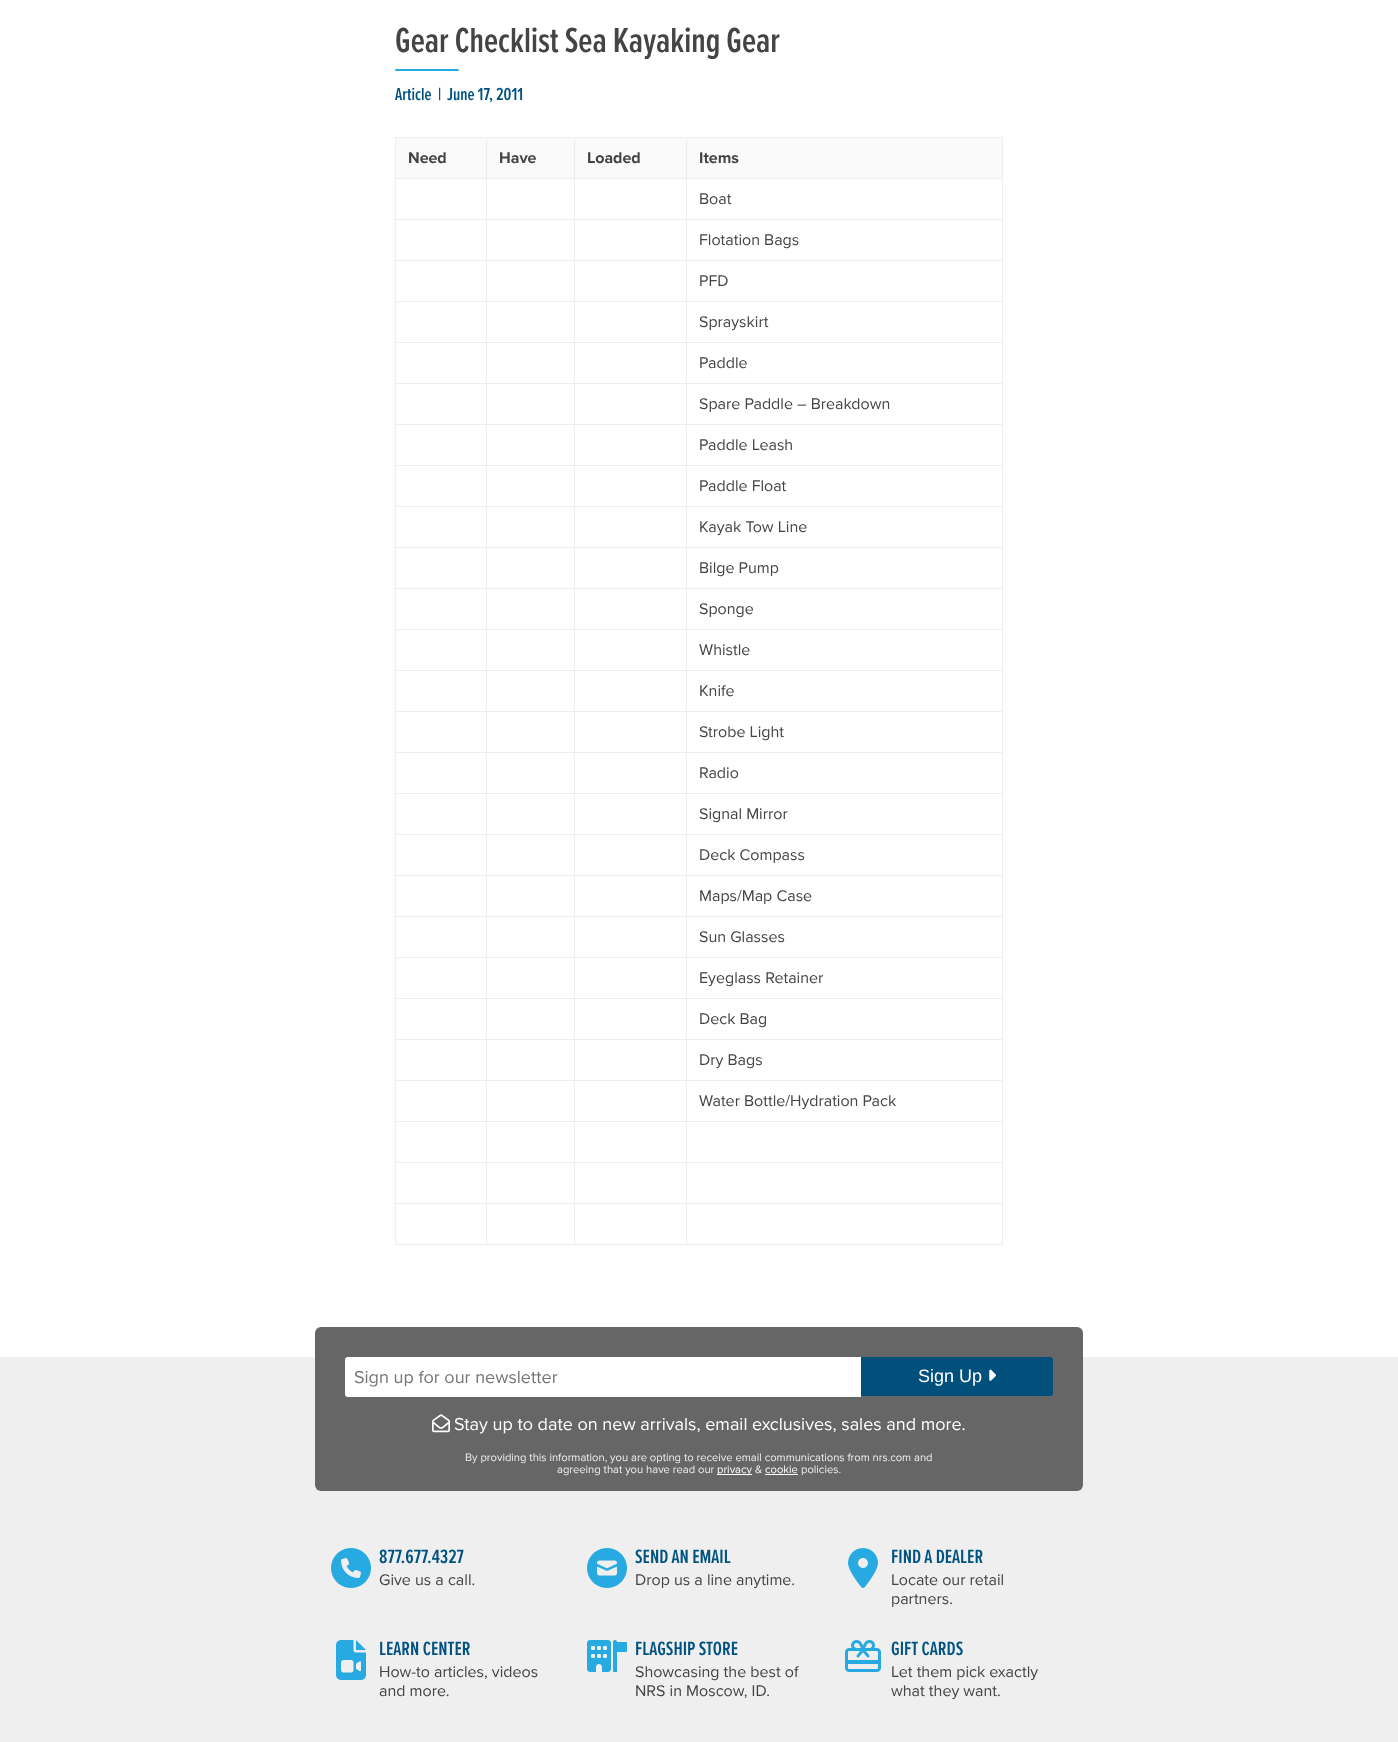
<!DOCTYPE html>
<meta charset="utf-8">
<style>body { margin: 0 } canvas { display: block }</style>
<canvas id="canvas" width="1398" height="1742"></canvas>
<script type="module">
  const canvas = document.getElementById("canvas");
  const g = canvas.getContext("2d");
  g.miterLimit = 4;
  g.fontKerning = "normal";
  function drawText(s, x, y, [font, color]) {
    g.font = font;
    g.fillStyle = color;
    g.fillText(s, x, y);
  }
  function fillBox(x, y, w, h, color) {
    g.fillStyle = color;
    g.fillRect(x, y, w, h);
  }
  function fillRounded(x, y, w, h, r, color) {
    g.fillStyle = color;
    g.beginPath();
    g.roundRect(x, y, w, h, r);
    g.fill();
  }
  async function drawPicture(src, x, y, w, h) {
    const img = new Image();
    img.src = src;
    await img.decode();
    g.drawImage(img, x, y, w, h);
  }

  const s1 = ["600 36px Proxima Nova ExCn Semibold", "#444444"];
  const s2 = ["600 18px Proxima Nova ExCn Semibold", "#005380"];
  const s3 = ["bold 16px Proxima Nova", "#444444"];
  const s4 = ["16px Proxima Nova", "#444444"];
  const s5 = ["18px Proxima Nova", "#757575"];
  const s6 = ["18px Liberation Sans", "#FFFFFF"];
  const s7 = ["18px Proxima Nova", "#FFFFFF"];
  const s8 = ["11.2px Proxima Nova", "#EFEFEF"];
  const s9 = ["11.2px Proxima Nova", "#FFFFFF"];
  const s10 = ["600 20px Proxima Nova ExCn Semibold", "#005380"];

  fillBox(0, 0, 1398, 1742, "#EFEFEF");
  fillBox(0, 0, 1398, 1357, "#FFFFFF");
  drawText("Gear Checklist Sea Kayaking Gear", 395, 52, s1);
  fillRounded(395, 69, 64, 2, 1, "#27AAE1");
  drawText("Article", 395, 100, s2);
  drawText("|", 438, 100, s2);
  drawText("June 17, 2011", 447, 100, s2);
  fillBox(395, 137, 1, 1108, "#EEEEEE");
  fillBox(396, 138, 90, 40, "#FAFAFA");
  fillBox(395, 137, 608, 1, "#EEEEEE");
  fillBox(395, 178, 608, 1, "#EEEEEE");
  fillBox(395, 219, 608, 1, "#EEEEEE");
  fillBox(395, 260, 608, 1, "#EEEEEE");
  fillBox(395, 301, 608, 1, "#EEEEEE");
  fillBox(395, 342, 608, 1, "#EEEEEE");
  fillBox(395, 383, 608, 1, "#EEEEEE");
  fillBox(395, 424, 608, 1, "#EEEEEE");
  fillBox(395, 465, 608, 1, "#EEEEEE");
  fillBox(395, 506, 608, 1, "#EEEEEE");
  fillBox(395, 547, 608, 1, "#EEEEEE");
  fillBox(395, 588, 608, 1, "#EEEEEE");
  fillBox(395, 629, 608, 1, "#EEEEEE");
  fillBox(395, 670, 608, 1, "#EEEEEE");
  fillBox(395, 711, 608, 1, "#EEEEEE");
  fillBox(395, 752, 608, 1, "#EEEEEE");
  fillBox(395, 793, 608, 1, "#EEEEEE");
  fillBox(395, 834, 608, 1, "#EEEEEE");
  fillBox(395, 875, 608, 1, "#EEEEEE");
  fillBox(395, 916, 608, 1, "#EEEEEE");
  fillBox(395, 957, 608, 1, "#EEEEEE");
  fillBox(395, 998, 608, 1, "#EEEEEE");
  fillBox(395, 1039, 608, 1, "#EEEEEE");
  fillBox(395, 1080, 608, 1, "#EEEEEE");
  fillBox(395, 1121, 608, 1, "#EEEEEE");
  fillBox(395, 1162, 608, 1, "#EEEEEE");
  fillBox(395, 1203, 608, 1, "#EEEEEE");
  fillBox(1002, 1203, 1, 42, "#EEEEEE");
  fillBox(686, 1244, 317, 1, "#EEEEEE");
  fillBox(686, 1203, 1, 42, "#EEEEEE");
  fillBox(574, 1244, 113, 1, "#EEEEEE");
  fillBox(574, 1203, 1, 42, "#EEEEEE");
  fillBox(486, 1244, 89, 1, "#EEEEEE");
  fillBox(486, 1203, 1, 42, "#EEEEEE");
  fillBox(486, 1162, 1, 42, "#EEEEEE");
  fillBox(486, 1121, 1, 42, "#EEEEEE");
  fillBox(486, 1080, 1, 42, "#EEEEEE");
  fillBox(486, 1039, 1, 42, "#EEEEEE");
  fillBox(486, 998, 1, 42, "#EEEEEE");
  fillBox(486, 957, 1, 42, "#EEEEEE");
  fillBox(486, 916, 1, 42, "#EEEEEE");
  fillBox(486, 875, 1, 42, "#EEEEEE");
  fillBox(486, 834, 1, 42, "#EEEEEE");
  fillBox(486, 793, 1, 42, "#EEEEEE");
  fillBox(486, 752, 1, 42, "#EEEEEE");
  fillBox(486, 711, 1, 42, "#EEEEEE");
  fillBox(486, 670, 1, 42, "#EEEEEE");
  fillBox(486, 629, 1, 42, "#EEEEEE");
  fillBox(486, 588, 1, 42, "#EEEEEE");
  fillBox(486, 547, 1, 42, "#EEEEEE");
  fillBox(486, 506, 1, 42, "#EEEEEE");
  fillBox(486, 465, 1, 42, "#EEEEEE");
  fillBox(486, 424, 1, 42, "#EEEEEE");
  fillBox(486, 383, 1, 42, "#EEEEEE");
  fillBox(486, 342, 1, 42, "#EEEEEE");
  fillBox(486, 301, 1, 42, "#EEEEEE");
  fillBox(486, 260, 1, 42, "#EEEEEE");
  fillBox(486, 219, 1, 42, "#EEEEEE");
  fillBox(486, 178, 1, 42, "#EEEEEE");
  fillBox(486, 137, 1, 42, "#EEEEEE");
  drawText("Need", 408, 163, s3);
  fillBox(487, 138, 87, 40, "#FAFAFA");
  fillBox(574, 1162, 1, 42, "#EEEEEE");
  fillBox(574, 1121, 1, 42, "#EEEEEE");
  fillBox(574, 1080, 1, 42, "#EEEEEE");
  fillBox(574, 1039, 1, 42, "#EEEEEE");
  fillBox(574, 998, 1, 42, "#EEEEEE");
  fillBox(574, 957, 1, 42, "#EEEEEE");
  fillBox(574, 916, 1, 42, "#EEEEEE");
  fillBox(574, 875, 1, 42, "#EEEEEE");
  fillBox(574, 834, 1, 42, "#EEEEEE");
  fillBox(574, 793, 1, 42, "#EEEEEE");
  fillBox(574, 752, 1, 42, "#EEEEEE");
  fillBox(574, 711, 1, 42, "#EEEEEE");
  fillBox(574, 670, 1, 42, "#EEEEEE");
  fillBox(574, 629, 1, 42, "#EEEEEE");
  fillBox(574, 588, 1, 42, "#EEEEEE");
  fillBox(574, 547, 1, 42, "#EEEEEE");
  fillBox(574, 506, 1, 42, "#EEEEEE");
  fillBox(574, 465, 1, 42, "#EEEEEE");
  fillBox(574, 424, 1, 42, "#EEEEEE");
  fillBox(574, 383, 1, 42, "#EEEEEE");
  fillBox(574, 342, 1, 42, "#EEEEEE");
  fillBox(574, 301, 1, 42, "#EEEEEE");
  fillBox(574, 260, 1, 42, "#EEEEEE");
  fillBox(574, 219, 1, 42, "#EEEEEE");
  fillBox(574, 178, 1, 42, "#EEEEEE");
  fillBox(574, 137, 1, 42, "#EEEEEE");
  drawText("Have", 499, 163, s3);
  fillBox(575, 138, 111, 40, "#FAFAFA");
  fillBox(686, 1162, 1, 42, "#EEEEEE");
  fillBox(686, 1121, 1, 42, "#EEEEEE");
  fillBox(686, 1080, 1, 42, "#EEEEEE");
  fillBox(686, 1039, 1, 42, "#EEEEEE");
  fillBox(686, 998, 1, 42, "#EEEEEE");
  fillBox(686, 957, 1, 42, "#EEEEEE");
  fillBox(686, 916, 1, 42, "#EEEEEE");
  fillBox(686, 875, 1, 42, "#EEEEEE");
  fillBox(686, 834, 1, 42, "#EEEEEE");
  fillBox(686, 793, 1, 42, "#EEEEEE");
  fillBox(686, 752, 1, 42, "#EEEEEE");
  fillBox(686, 711, 1, 42, "#EEEEEE");
  fillBox(686, 670, 1, 42, "#EEEEEE");
  fillBox(686, 629, 1, 42, "#EEEEEE");
  fillBox(686, 588, 1, 42, "#EEEEEE");
  fillBox(686, 547, 1, 42, "#EEEEEE");
  fillBox(686, 506, 1, 42, "#EEEEEE");
  fillBox(686, 465, 1, 42, "#EEEEEE");
  fillBox(686, 424, 1, 42, "#EEEEEE");
  fillBox(686, 383, 1, 42, "#EEEEEE");
  fillBox(686, 342, 1, 42, "#EEEEEE");
  fillBox(686, 301, 1, 42, "#EEEEEE");
  fillBox(686, 260, 1, 42, "#EEEEEE");
  fillBox(686, 219, 1, 42, "#EEEEEE");
  fillBox(686, 178, 1, 42, "#EEEEEE");
  fillBox(686, 137, 1, 42, "#EEEEEE");
  drawText("Loaded", 587, 163, s3);
  fillBox(687, 138, 315, 40, "#FAFAFA");
  fillBox(1002, 1162, 1, 42, "#EEEEEE");
  fillBox(1002, 1121, 1, 42, "#EEEEEE");
  fillBox(1002, 1080, 1, 42, "#EEEEEE");
  fillBox(1002, 1039, 1, 42, "#EEEEEE");
  fillBox(1002, 998, 1, 42, "#EEEEEE");
  fillBox(1002, 957, 1, 42, "#EEEEEE");
  fillBox(1002, 916, 1, 42, "#EEEEEE");
  fillBox(1002, 875, 1, 42, "#EEEEEE");
  fillBox(1002, 834, 1, 42, "#EEEEEE");
  fillBox(1002, 793, 1, 42, "#EEEEEE");
  fillBox(1002, 752, 1, 42, "#EEEEEE");
  fillBox(1002, 711, 1, 42, "#EEEEEE");
  fillBox(1002, 670, 1, 42, "#EEEEEE");
  fillBox(1002, 629, 1, 42, "#EEEEEE");
  fillBox(1002, 588, 1, 42, "#EEEEEE");
  fillBox(1002, 547, 1, 42, "#EEEEEE");
  fillBox(1002, 506, 1, 42, "#EEEEEE");
  fillBox(1002, 465, 1, 42, "#EEEEEE");
  fillBox(1002, 424, 1, 42, "#EEEEEE");
  fillBox(1002, 383, 1, 42, "#EEEEEE");
  fillBox(1002, 342, 1, 42, "#EEEEEE");
  fillBox(1002, 301, 1, 42, "#EEEEEE");
  fillBox(1002, 260, 1, 42, "#EEEEEE");
  fillBox(1002, 219, 1, 42, "#EEEEEE");
  fillBox(1002, 178, 1, 42, "#EEEEEE");
  fillBox(1002, 137, 1, 42, "#EEEEEE");
  drawText("Items", 699, 163, s3);
  drawText("Boat", 699, 204, s4);
  drawText("Flotation Bags", 699, 245, s4);
  drawText("PFD", 699, 286, s4);
  drawText("Sprayskirt", 699, 327, s4);
  drawText("Paddle", 699, 368, s4);
  drawText("Spare Paddle – Breakdown", 699, 409, s4);
  drawText("Paddle Leash", 699, 450, s4);
  drawText("Paddle Float", 699, 491, s4);
  drawText("Kayak Tow Line", 699, 532, s4);
  drawText("Bilge Pump", 699, 573, s4);
  drawText("Sponge", 699, 614, s4);
  drawText("Whistle", 699, 655, s4);
  drawText("Knife", 699, 696, s4);
  drawText("Strobe Light", 699, 737, s4);
  drawText("Radio", 699, 778, s4);
  drawText("Signal Mirror", 699, 819, s4);
  drawText("Deck Compass", 699, 860, s4);
  drawText("Maps/Map Case", 699, 901, s4);
  drawText("Sun Glasses", 699, 942, s4);
  drawText("Eyeglass Retainer", 699, 983, s4);
  drawText("Deck Bag", 699, 1024, s4);
  drawText("Dry Bags", 699, 1065, s4);
  drawText("Water Bottle/Hydration Pack", 699, 1106, s4);
  fillBox(395, 1244, 92, 1, "#EEEEEE");
  fillRounded(315, 1327, 768, 164, 6, "#666666");
  g.fillStyle = "#FFFFFF";
  g.beginPath();
  g.roundRect(345, 1357, 516, 40, [3, 0, 0, 3]);
  g.fill();
  drawText("Sign up for our newsletter", 354, 1383, s5);
  g.fillStyle = "#01507B";
  g.beginPath();
  g.roundRect(861, 1357, 192, 39, [0, 3, 3, 0]);
  g.fill();
  drawText("Sign Up", 918, 1382, s6);
  await drawPicture("pic1.png", 989, 1369, 7, 12);
  await drawPicture("pic2.png", 432, 1414, 18, 19);
  drawText("Stay up to date on new arrivals, email exclusives, sales and more.", 454, 1430, s7);
  drawText("By providing this information, you are opting to receive email communications from nrs.com and", 465, 1461, s8);
  drawText("agreeing that you have read our", 557, 1473, s8);
  fillBox(717, 1474, 35, 1, "#FFFFFF");
  drawText("privacy", 717, 1473, s9);
  drawText("&", 755, 1473, s8);
  drawText("cookie", 765, 1473, s9);
  fillBox(765, 1474, 33, 1, "#FFFFFF");
  drawText("policies.", 801, 1473, s8);
  await drawPicture("pic3.png", 331, 1548, 40, 40);
  drawText("877.677.4327", 379, 1563, s10);
  drawText("Give us a call.", 379, 1585, s4);
  await drawPicture("pic4.png", 587, 1548, 40, 40);
  drawText("SEND AN EMAIL", 635, 1563, s10);
  drawText("Drop us a line anytime.", 635, 1585, s4);
  await drawPicture("pic5.png", 848, 1548, 30, 40);
  drawText("FIND A DEALER", 891, 1563, s10);
  drawText("Locate our retail", 891, 1585, s4);
  drawText("partners.", 891, 1604, s4);
  await drawPicture("pic6.png", 336, 1640, 30, 40);
  drawText("LEARN CENTER", 379, 1655, s10);
  drawText("How-to articles, videos", 379, 1677, s4);
  drawText("and more.", 379, 1696, s4);
  await drawPicture("pic7.png", 587, 1640, 40, 32);
  drawText("FLAGSHIP STORE", 635, 1655, s10);
  drawText("Showcasing the best of", 635, 1677, s4);
  drawText("NRS in Moscow, ID.", 635, 1696, s4);
  await drawPicture("pic8.png", 845, 1640, 36, 32);
  drawText("GIFT CARDS", 891, 1655, s10);
  drawText("Let them pick exactly", 891, 1677, s4);
  drawText("what they want.", 891, 1696, s4);
</script>
